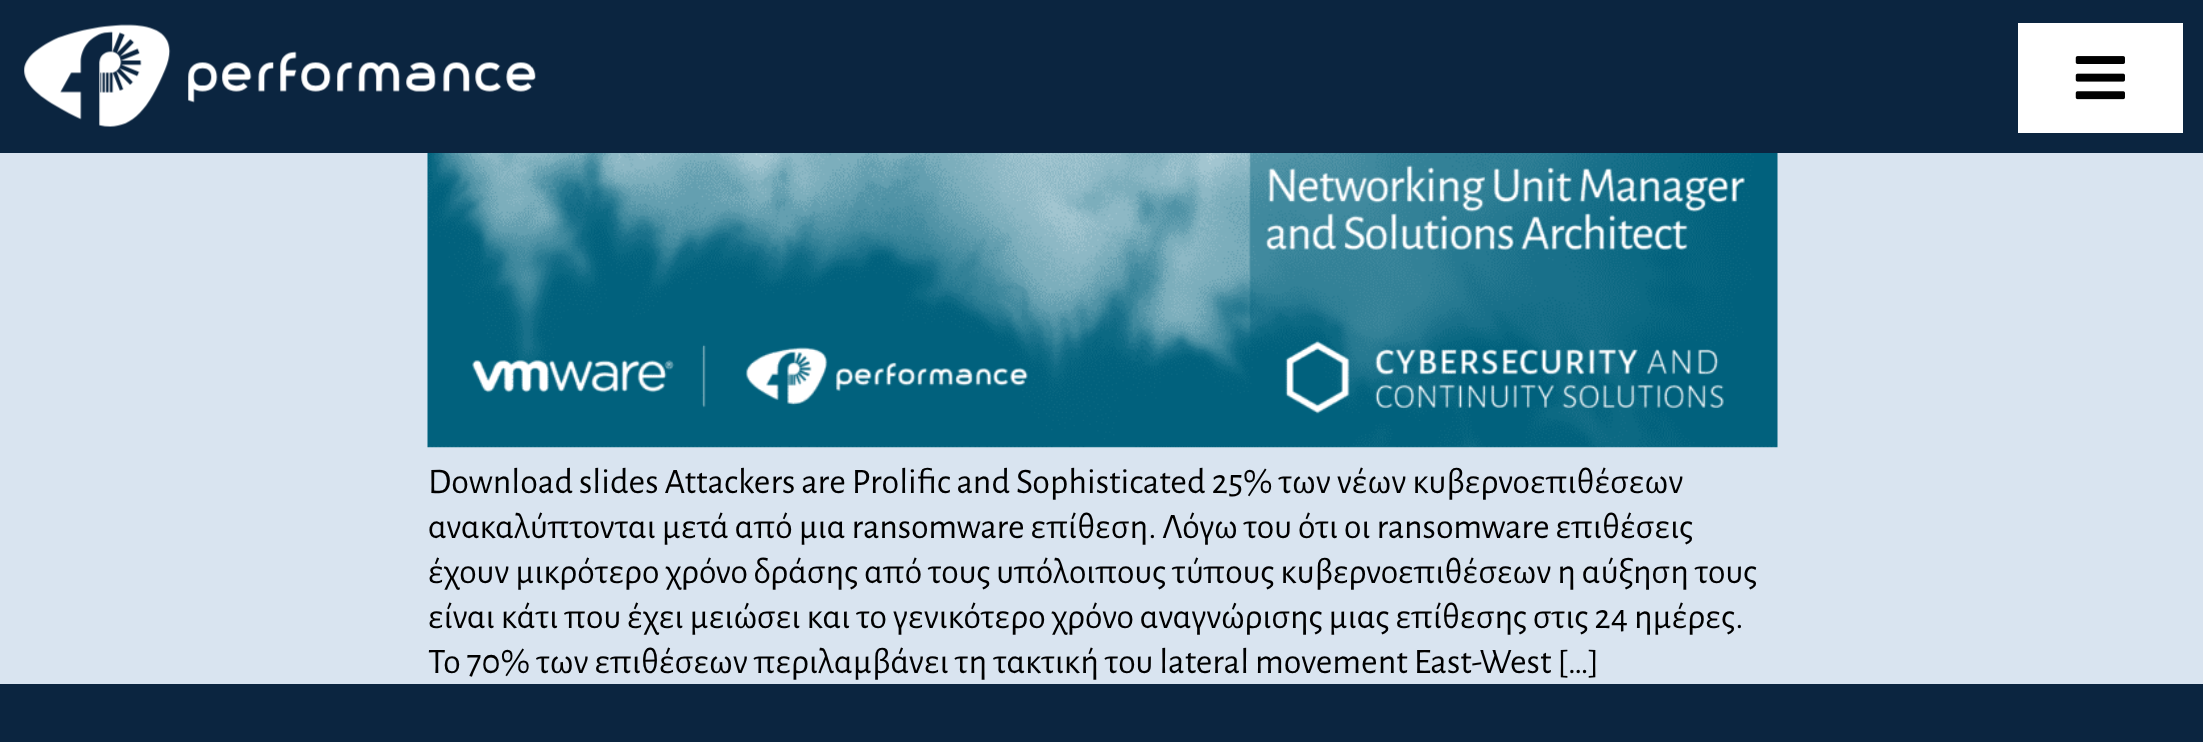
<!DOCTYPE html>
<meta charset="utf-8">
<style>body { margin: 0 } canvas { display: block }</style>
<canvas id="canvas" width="2203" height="742"></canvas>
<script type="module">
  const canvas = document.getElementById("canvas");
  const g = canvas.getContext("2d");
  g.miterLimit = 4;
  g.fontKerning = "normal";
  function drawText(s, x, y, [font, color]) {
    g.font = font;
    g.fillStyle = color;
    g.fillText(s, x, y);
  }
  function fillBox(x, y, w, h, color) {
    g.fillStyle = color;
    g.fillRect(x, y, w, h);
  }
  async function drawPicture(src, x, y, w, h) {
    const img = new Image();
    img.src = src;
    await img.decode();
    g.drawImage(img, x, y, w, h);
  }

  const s1 = ["36px Alegreya Sans", "#000000"];

  fillBox(0, 0, 2203, 742, "#D9E4F0");
  fillBox(0, 0, 2203, 153, "#0B2540");
  await drawPicture("pic1.png", 24, 24, 512, 103);
  fillBox(2018, 23, 165, 110, "#FFFFFF");
  await drawPicture("pic2.png", 2075, 56, 50, 44);
  await drawPicture("pic3.png", 427, 153, 1351, 295);
  drawText("Download slides Attackers are Prolific and Sophisticated 25% των νέων κυβερνοεπιθέσεων", 428, 493, s1);
  drawText("ανακαλύπτονται μετά από μια ransomware επίθεση. Λόγω του ότι οι ransomware επιθέσεις", 428, 538, s1);
  drawText("έχουν μικρότερο χρόνο δράσης από τους υπόλοιπους τύπους κυβερνοεπιθέσεων η αύξηση τους", 428, 583, s1);
  drawText("είναι κάτι που έχει μειώσει και το γενικότερο χρόνο αναγνώρισης μιας επίθεσης στις 24 ημέρες.", 428, 628, s1);
  drawText("Το 70% των επιθέσεων περιλαμβάνει τη τακτική του lateral movement East-West […]", 428, 673, s1);
  fillBox(0, 684, 2203, 58, "#0B2540");
</script>
